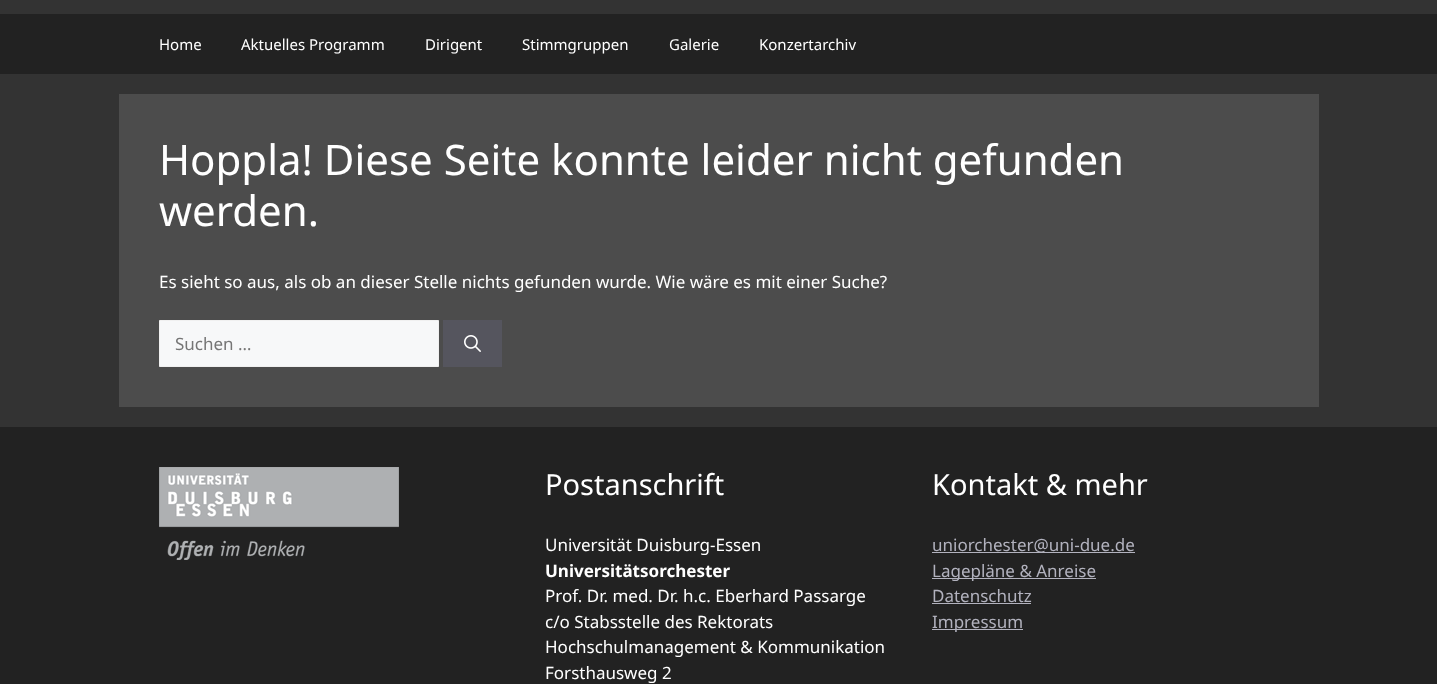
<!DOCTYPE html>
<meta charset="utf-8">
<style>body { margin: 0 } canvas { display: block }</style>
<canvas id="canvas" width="1437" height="684"></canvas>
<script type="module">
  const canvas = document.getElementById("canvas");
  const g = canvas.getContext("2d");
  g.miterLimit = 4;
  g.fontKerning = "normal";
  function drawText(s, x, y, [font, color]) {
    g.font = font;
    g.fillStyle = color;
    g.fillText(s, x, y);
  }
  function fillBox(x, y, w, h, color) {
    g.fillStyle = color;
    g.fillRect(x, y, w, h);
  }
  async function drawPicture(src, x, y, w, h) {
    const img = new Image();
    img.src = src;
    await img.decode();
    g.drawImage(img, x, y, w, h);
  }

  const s1 = ["15px Noto Sans", "#FFFFFF"];
  const s2 = ["42px Noto Sans", "#FFFFFF"];
  const s3 = ["17px Noto Sans", "#FFFFFF"];
  const s4 = ["17px Noto Sans", "#757575"];
  const s5 = ["29px Noto Sans", "#FFFFFF"];
  const s6 = ["bold 17px Noto Sans", "#FFFFFF"];
  const s7 = ["17px Noto Sans", "#B2B2BE"];

  fillBox(0, 0, 1437, 684, "#333333");
  fillBox(0, 14, 1437, 60, "#222222");
  drawText("Home", 159, 50, s1);
  drawText("Aktuelles Programm", 241, 50, s1);
  drawText("Dirigent", 425, 50, s1);
  drawText("Stimmgruppen", 522, 50, s1);
  drawText("Galerie", 669, 50, s1);
  drawText("Konzertarchiv", 759, 50, s1);
  fillBox(119, 94, 1200, 313, "#4C4C4C");
  drawText("Hoppla! Diese Seite konnte leider nicht gefunden", 159, 175, s2);
  drawText("werden.", 159, 226, s2);
  drawText("Es sieht so aus, als ob an dieser Stelle nichts gefunden wurde. Wie wäre es mit einer Suche?", 159, 288, s3);
  g.fillStyle = "#F7F8F9";
  g.beginPath();
  g.rect(159.5, 320.5, 279, 46);
  g.fill();
  g.strokeStyle = "#F0F0F0";
  g.stroke();
  drawText("Suchen …", 175, 350, s4);
  fillBox(443, 320, 59, 47, "#55555E");
  await drawPicture("pic1.png", 464, 335, 17, 17);
  fillBox(0, 427, 1437, 257, "#222222");
  await drawPicture("pic2.png", 159, 467, 240, 93);
  drawText("Postanschrift", 545, 495, s5);
  drawText("Universität Duisburg-Essen", 545, 551, s3);
  drawText("Universitätsorchester", 545, 577, s6);
  drawText("Prof. Dr. med. Dr. h.c. Eberhard Passarge", 545, 602, s3);
  drawText("c/o Stabsstelle des Rektorats", 545, 628, s3);
  drawText("Hochschulmanagement & Kommunikation", 545, 653, s3);
  drawText("Forsthausweg 2", 545, 679, s3);
  drawText("Kontakt & mehr", 932, 495, s5);
  fillBox(932, 552, 203, 1, "#B2B2BE");
  drawText("uniorchester@uni-due.de", 932, 551, s7);
  fillBox(932, 578, 164, 1, "#B2B2BE");
  drawText("Lagepläne & Anreise", 932, 577, s7);
  drawText("Datenschutz", 932, 602, s7);
  fillBox(932, 603, 99, 1, "#B2B2BE");
  fillBox(932, 629, 91, 1, "#B2B2BE");
  drawText("Impressum", 932, 628, s7);
</script>
